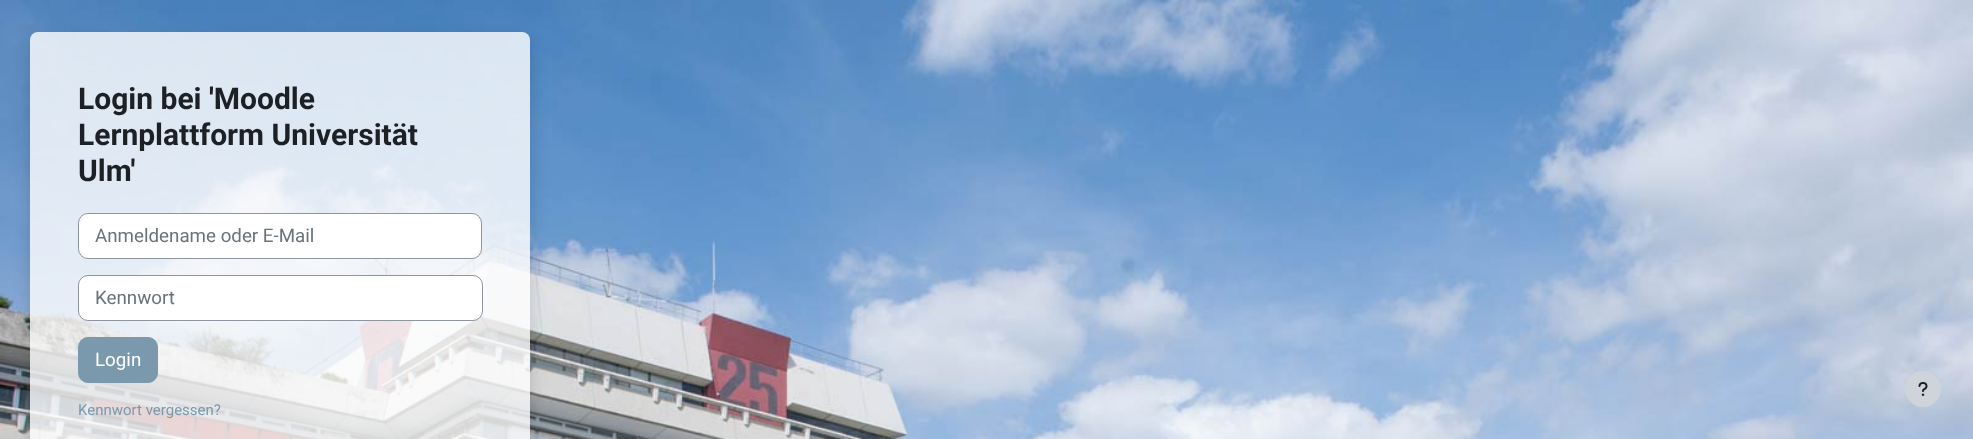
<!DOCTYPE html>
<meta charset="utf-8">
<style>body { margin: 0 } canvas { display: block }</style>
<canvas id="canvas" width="1973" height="439"></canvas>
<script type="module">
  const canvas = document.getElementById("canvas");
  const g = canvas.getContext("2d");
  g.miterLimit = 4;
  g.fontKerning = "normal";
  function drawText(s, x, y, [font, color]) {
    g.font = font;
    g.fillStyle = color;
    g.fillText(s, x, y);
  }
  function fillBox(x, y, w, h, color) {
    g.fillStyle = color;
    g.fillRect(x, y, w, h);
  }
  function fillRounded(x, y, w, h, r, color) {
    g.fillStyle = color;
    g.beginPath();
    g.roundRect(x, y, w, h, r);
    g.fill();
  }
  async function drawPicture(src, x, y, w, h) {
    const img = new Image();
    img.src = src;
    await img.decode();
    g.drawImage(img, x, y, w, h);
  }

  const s1 = ["bold 30px Roboto", "#1D2125"];
  const s2 = ["18.75px Roboto", "#6A737B"];
  const s3 = ["18.75px Roboto", "#FFFFFF"];
  const s4 = ["15px Roboto", "#7A99AC"];

  fillBox(0, 0, 1973, 439, "#FFFFFF");
  await drawPicture("pic1.png", 0, 0, 1973, 439);
  g.save();
  g.beginPath();
  g.moveTo(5, 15);
  g.lineTo(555, 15);
  g.lineTo(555, 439);
  g.lineTo(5, 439);
  g.closePath();
  g.moveTo(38, 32);
  g.lineTo(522, 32);
  g.bezierCurveTo(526.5, 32, 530, 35.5, 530, 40);
  g.lineTo(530, 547);
  g.bezierCurveTo(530, 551.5, 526.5, 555, 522, 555);
  g.lineTo(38, 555);
  g.bezierCurveTo(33.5, 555, 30, 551.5, 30, 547);
  g.lineTo(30, 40);
  g.bezierCurveTo(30, 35.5, 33.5, 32, 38, 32);
  g.closePath();
  g.clip("evenodd");
  g.fillStyle = "rgba(0, 0, 0, 0.15)";
  g.filter = "blur(8px)";
  g.beginPath();
  g.roundRect(30, 40, 500, 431, 8);
  g.fill();
  g.filter = "none";
  g.restore();
  fillRounded(30, 32, 500, 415, 8, "rgba(255, 255, 255, 0.8)");
  drawText("Login bei 'Moodle", 78, 109, s1);
  drawText("Lernplattform Universität", 78, 145, s1);
  drawText("Ulm'", 78, 181, s1);
  g.fillStyle = "#FFFFFF";
  g.beginPath();
  g.roundRect(78.5, 213.5, 403, 45, 9.5);
  g.fill();
  g.strokeStyle = "#8F959E";
  g.stroke();
  drawText("Anmeldename oder E-Mail", 95, 242, s2);
  g.fillStyle = "#FFFFFF";
  g.beginPath();
  g.roundRect(78.5, 275.5, 404, 45, 9.5);
  g.fill();
  g.stroke();
  drawText("Kennwort", 95, 304, s2);
  g.fillStyle = "#7A99AC";
  g.beginPath();
  g.roundRect(78.5, 337.5, 79, 45, 9.5);
  g.fill();
  g.strokeStyle = "#7A99AC";
  g.stroke();
  drawText("Login", 95, 366, s3);
  drawText("Kennwort vergessen?", 78, 415, s4);
  g.fillStyle = "#CED4DA";
  g.beginPath();
  g.arc(1923, 389, 18, 0, Math.PI * 2);
  g.fill();
  await drawPicture("pic2.png", 1918, 382, 10, 14);
</script>
